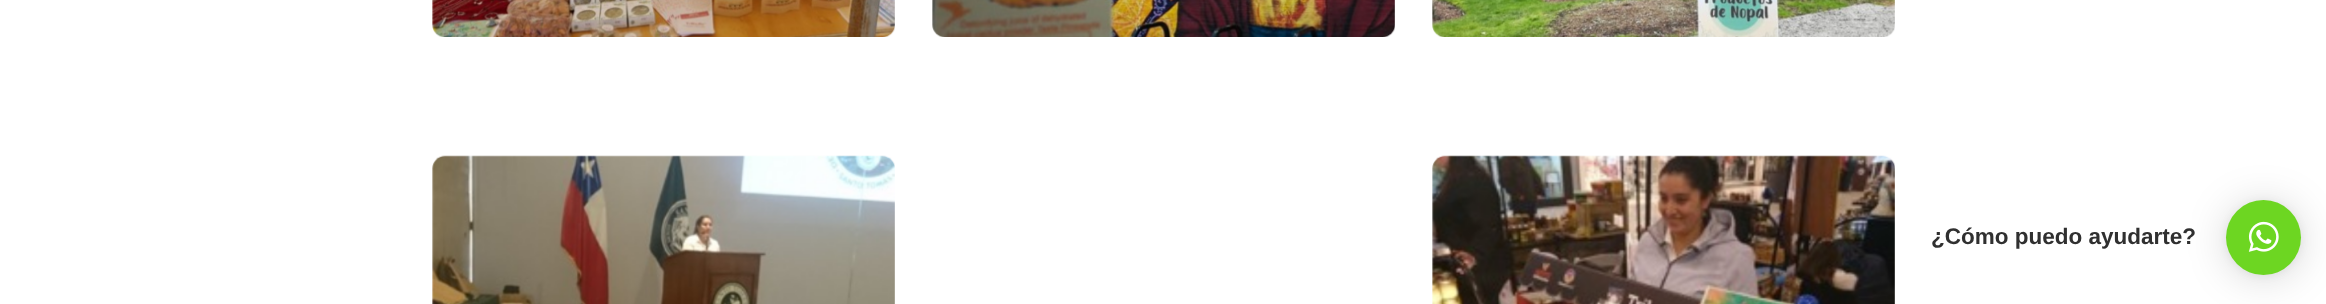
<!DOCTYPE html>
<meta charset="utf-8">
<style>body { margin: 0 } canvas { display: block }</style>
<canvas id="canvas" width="2326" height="304"></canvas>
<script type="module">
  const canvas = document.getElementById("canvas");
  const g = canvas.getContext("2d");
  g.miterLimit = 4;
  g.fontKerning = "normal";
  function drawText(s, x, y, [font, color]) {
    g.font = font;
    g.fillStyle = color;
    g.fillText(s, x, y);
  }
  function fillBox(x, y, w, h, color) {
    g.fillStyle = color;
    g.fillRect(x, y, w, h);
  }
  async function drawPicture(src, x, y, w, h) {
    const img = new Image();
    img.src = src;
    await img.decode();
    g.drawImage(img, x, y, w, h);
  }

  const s1 = ["bold 22.5px Liberation Sans", "#303030"];

  fillBox(0, 0, 2326, 304, "#FFFFFF");
  await drawPicture("pic1.png", 432, 0, 463, 37);
  await drawPicture("pic2.png", 932, 0, 463, 37);
  await drawPicture("pic3.png", 1432, 0, 463, 37);
  await drawPicture("pic4.png", 432, 155, 463, 149);
  await drawPicture("pic5.png", 1432, 155, 463, 149);
  g.fillStyle = "rgba(0, 0, 0, 0.16)";
  g.filter = "blur(20px)";
  g.beginPath();
  g.roundRect(2226, 203, 75, 75, 37.5);
  g.fill();
  g.filter = "none";
  g.fillStyle = "rgba(0, 0, 0, 0.06)";
  g.filter = "blur(4px)";
  g.beginPath();
  g.roundRect(2226, 201, 75, 75, 37.5);
  g.fill();
  g.filter = "none";
  g.fillStyle = "#6DD622";
  g.beginPath();
  g.arc(2263.5, 237.5, 37.5, 0, Math.PI * 2);
  g.fill();
  drawText("¿Cómo puedo ayudarte?", 1931, 244, s1);
  await drawPicture("pic6.png", 2248, 221, 31, 31);
</script>
